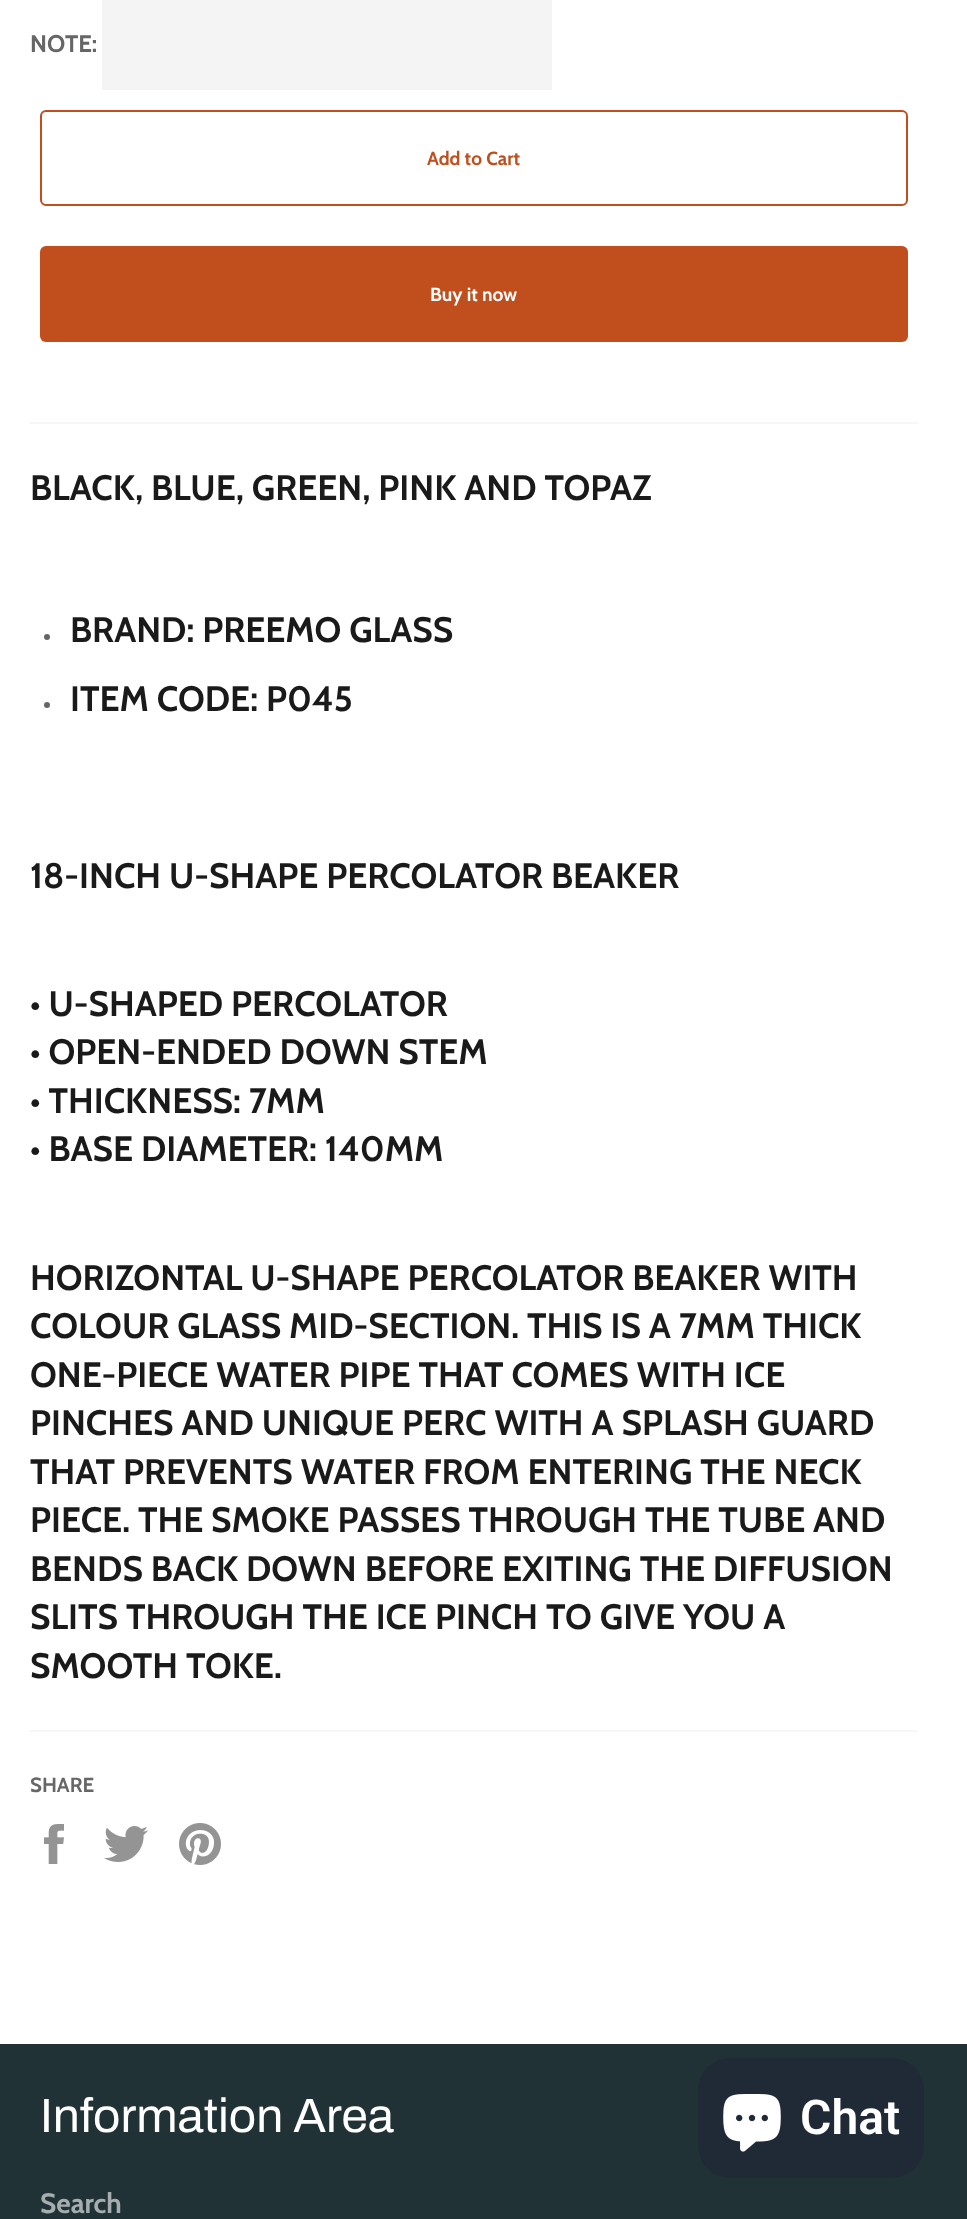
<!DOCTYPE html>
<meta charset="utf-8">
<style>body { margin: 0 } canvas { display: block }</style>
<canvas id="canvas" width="967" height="2219"></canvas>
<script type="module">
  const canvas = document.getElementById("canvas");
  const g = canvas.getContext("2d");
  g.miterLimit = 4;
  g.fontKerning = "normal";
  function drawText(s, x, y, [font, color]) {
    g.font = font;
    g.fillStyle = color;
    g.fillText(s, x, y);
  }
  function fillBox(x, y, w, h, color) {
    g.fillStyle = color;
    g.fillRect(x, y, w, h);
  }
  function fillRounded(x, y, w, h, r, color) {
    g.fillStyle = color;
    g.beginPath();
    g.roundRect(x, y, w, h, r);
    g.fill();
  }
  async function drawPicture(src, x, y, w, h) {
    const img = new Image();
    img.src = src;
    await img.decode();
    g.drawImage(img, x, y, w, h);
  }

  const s1 = ["bold 24px Cabin", "#666666"];
  const s2 = ["bold 19px Cabin", "#C04F1D"];
  const s3 = ["bold 19px Cabin", "#FFFFFF"];
  const s4 = ["bold 35.25px Cabin", "#1A1A1A"];
  const s5 = ["bold 20.5px Cabin", "#666666"];
  const s6 = ["48px Archivo", "#FFFFFF"];
  const s7 = ["bold 28px Cabin", "#A6ADAF"];
  const s8 = ["600 48px Roboto", "#FFFFFF"];

  fillBox(0, 0, 967, 2219, "#FFFFFF");
  drawText("NOTE:", 30, 52, s1);
  fillBox(102, 0, 450, 90, "#F4F4F4");
  g.beginPath();
  g.roundRect(41, 111, 866, 94, 5);
  g.strokeStyle = "#C04F1D";
  g.lineWidth = 2;
  g.stroke();
  drawText("Add to Cart", 427, 165, s2);
  fillRounded(40, 246, 868, 96, 6, "#C04F1D");
  drawText("Buy it now", 430, 301, s3);
  fillBox(30, 422, 888, 2, "#F7F7F7");
  drawText("BLACK, BLUE, GREEN, PINK AND TOPAZ", 30, 500, s4);
  g.fillStyle = "#666666";
  g.beginPath();
  g.arc(47, 637, 3, 0, Math.PI * 2);
  g.fill();
  drawText("BRAND: PREEMO GLASS", 70, 642, s4);
  g.fillStyle = "#666666";
  g.beginPath();
  g.arc(47, 705, 3, 0, Math.PI * 2);
  g.fill();
  drawText("ITEM CODE: P045", 70, 711, s4);
  drawText("18-INCH U-SHAPE PERCOLATOR BEAKER", 30, 888, s4);
  drawText("• U-SHAPED PERCOLATOR", 30, 1016, s4);
  drawText("• OPEN-ENDED DOWN STEM", 30, 1064, s4);
  drawText("• THICKNESS: 7MM", 30, 1113, s4);
  drawText("• BASE DIAMETER: 140MM", 30, 1161, s4);
  drawText("HORIZONTAL U-SHAPE PERCOLATOR BEAKER WITH", 30, 1290, s4);
  drawText("COLOUR GLASS MID-SECTION. THIS IS A 7MM THICK", 30, 1338, s4);
  drawText("ONE-PIECE WATER PIPE THAT COMES WITH ICE", 30, 1387, s4);
  drawText("PINCHES AND UNIQUE PERC WITH A SPLASH GUARD", 30, 1435, s4);
  drawText("THAT PREVENTS WATER FROM ENTERING THE NECK", 30, 1484, s4);
  drawText("PIECE. THE SMOKE PASSES THROUGH THE TUBE AND", 30, 1532, s4);
  drawText("BENDS BACK DOWN BEFORE EXITING THE DIFFUSION", 30, 1581, s4);
  drawText("SLITS THROUGH THE ICE PINCH TO GIVE YOU A", 30, 1629, s4);
  drawText("SMOOTH TOKE.", 30, 1678, s4);
  fillBox(30, 1730, 888, 2, "#F7F7F7");
  drawText("SHARE", 30, 1792, s5);
  await drawPicture("pic1.png", 44, 1824, 20, 40);
  await drawPicture("pic2.png", 104, 1826, 44, 36);
  await drawPicture("pic3.png", 179, 1823, 42, 42);
  fillBox(0, 2044, 967, 175, "#213236");
  drawText("Information Area", 40, 2132, s6);
  drawText("Search", 40, 2213, s7);
  fillRounded(698, 2058, 226, 120, 32, "#202A36");
  await drawPicture("pic4.png", 723, 2094, 58, 58);
  drawText("Chat", 800, 2134, s8);
</script>
